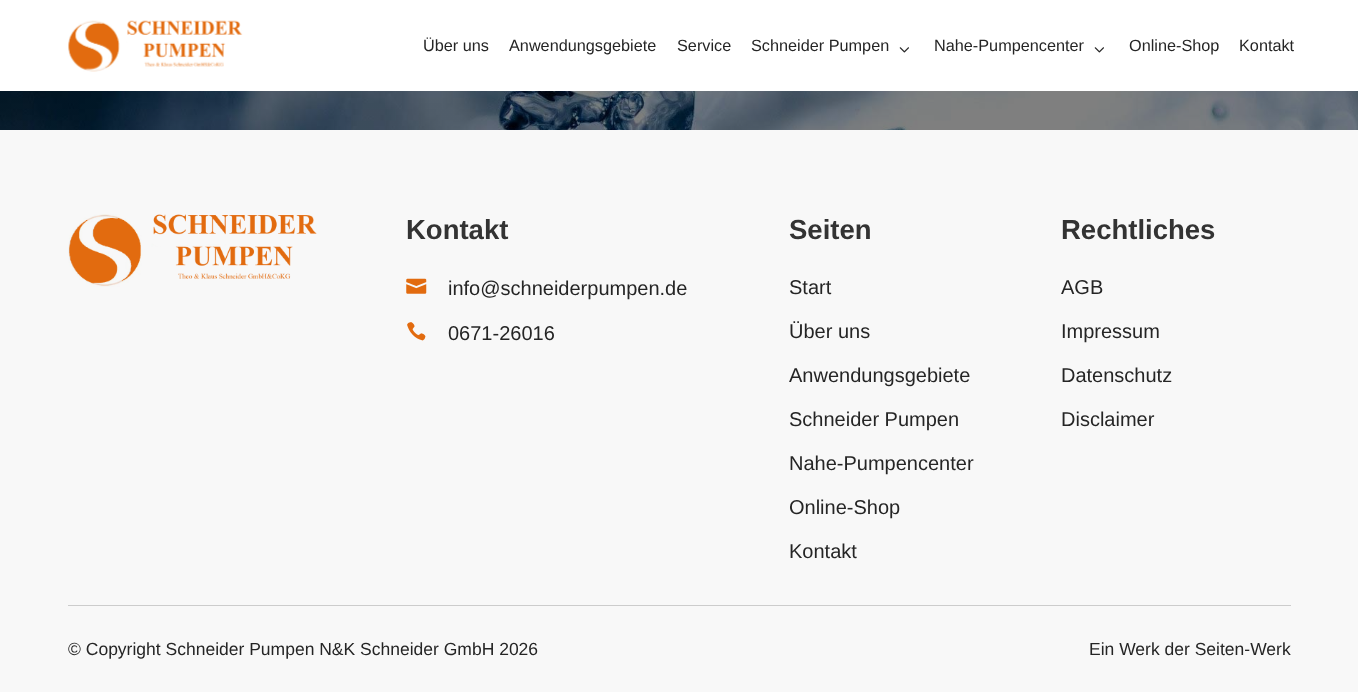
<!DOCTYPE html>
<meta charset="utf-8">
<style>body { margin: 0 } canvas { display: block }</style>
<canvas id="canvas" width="1358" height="692"></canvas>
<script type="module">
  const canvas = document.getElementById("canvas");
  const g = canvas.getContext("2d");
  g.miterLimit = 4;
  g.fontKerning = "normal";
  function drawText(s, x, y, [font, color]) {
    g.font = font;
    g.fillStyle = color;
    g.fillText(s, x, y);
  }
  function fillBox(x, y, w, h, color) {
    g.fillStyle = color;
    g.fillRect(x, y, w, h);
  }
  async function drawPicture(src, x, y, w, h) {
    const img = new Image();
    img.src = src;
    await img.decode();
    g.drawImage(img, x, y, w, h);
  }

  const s1 = ["16.25px Liberation Sans", "#252525"];
  const s2 = ["bold 27.5px Liberation Sans", "#333333"];
  const s3 = ["20px Liberation Sans", "#252525"];
  const s4 = ["17.5px Liberation Sans", "#252525"];

  fillBox(0, 0, 1358, 692, "#FFFFFF");
  await drawPicture("pic1.png", 68, 20, 175, 52);
  drawText("Über uns", 423, 51, s1);
  drawText("Anwendungsgebiete", 509, 51, s1);
  drawText("Service", 677, 51, s1);
  drawText("Schneider Pumpen", 751, 51, s1);
  await drawPicture("pic2.png", 899, 47, 10, 6);
  drawText("Nahe-Pumpencenter", 934, 51, s1);
  await drawPicture("pic2.png", 1094, 47, 10, 6);
  drawText("Online-Shop", 1129, 51, s1);
  drawText("Kontakt", 1239, 51, s1);
  await drawPicture("pic3.png", 0, 91, 1358, 39);
  fillBox(0, 130, 1358, 562, "#F8F8F8");
  await drawPicture("pic4.png", 68, 214, 249, 73);
  drawText("Kontakt", 406, 239, s2);
  await drawPicture("pic5.png", 406, 278, 21, 16);
  drawText("info@schneiderpumpen.de", 448, 295, s3);
  await drawPicture("pic6.png", 407, 322, 19, 19);
  drawText("0671-26016", 448, 340, s3);
  drawText("Seiten", 789, 239, s2);
  drawText("Start", 789, 294, s3);
  drawText("Über uns", 789, 338, s3);
  drawText("Anwendungsgebiete", 789, 382, s3);
  drawText("Schneider Pumpen", 789, 426, s3);
  drawText("Nahe-Pumpencenter", 789, 470, s3);
  drawText("Online-Shop", 789, 514, s3);
  drawText("Kontakt", 789, 558, s3);
  drawText("Rechtliches", 1061, 239, s2);
  drawText("AGB", 1061, 294, s3);
  drawText("Impressum", 1061, 338, s3);
  drawText("Datenschutz", 1061, 382, s3);
  drawText("Disclaimer", 1061, 426, s3);
  fillBox(68, 605, 1223, 1, "#CCCCCC");
  drawText("© Copyright Schneider Pumpen N&K Schneider GmbH 2026", 68, 655, s4);
  drawText("Ein Werk der Seiten-Werk", 1089, 655, s4);
</script>
